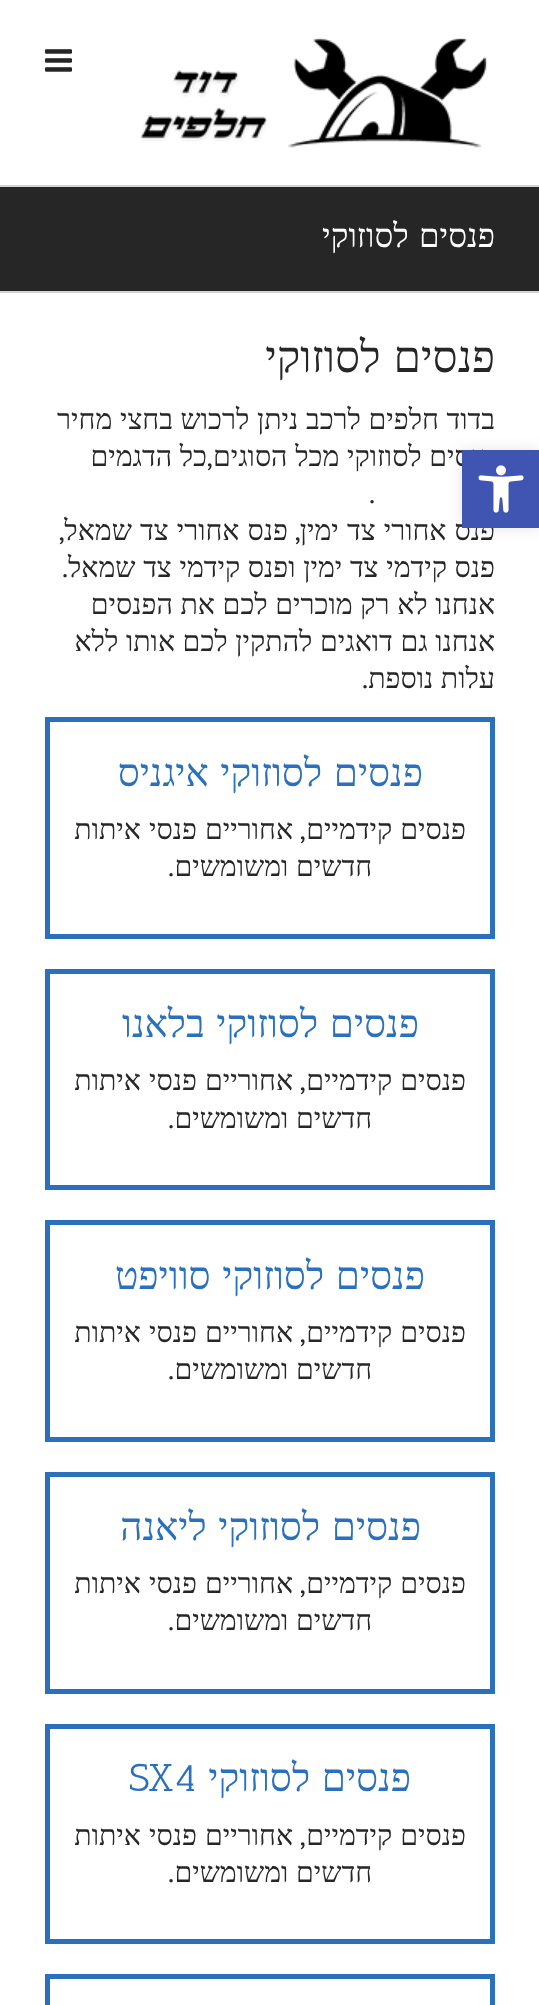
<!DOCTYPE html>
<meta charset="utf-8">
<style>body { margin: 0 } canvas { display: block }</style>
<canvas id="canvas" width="539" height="2005"></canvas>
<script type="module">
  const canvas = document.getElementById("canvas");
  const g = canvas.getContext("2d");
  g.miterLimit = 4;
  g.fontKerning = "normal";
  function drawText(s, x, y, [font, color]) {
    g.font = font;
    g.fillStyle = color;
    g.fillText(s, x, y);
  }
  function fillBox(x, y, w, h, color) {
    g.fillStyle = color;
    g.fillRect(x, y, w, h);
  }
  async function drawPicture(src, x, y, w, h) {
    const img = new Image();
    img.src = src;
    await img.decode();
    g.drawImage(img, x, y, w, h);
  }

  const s1 = ["33px Liberation Serif", "#FFFFFF"];
  const s2 = ["44px Liberation Serif", "#262626"];
  const s3 = ["28.5px Liberation Serif", "#262626"];
  const s4 = ["28.5px PT Sans", "#262626"];
  const s5 = ["38.75px Liberation Serif", "#2B70BC"];
  const s6 = ["38.75px Antic Slab", "#2B70BC"];

  fillBox(0, 0, 539, 2005, "#FFFFFF");
  await drawPicture("pic1.png", 140, 38, 347, 110);
  await drawPicture("pic2.png", 45, 49, 27, 23);
  fillBox(0, 187, 539, 104, "#262626");
  fillBox(0, 185, 539, 2, "#D2D3D4");
  fillBox(0, 291, 539, 2, "#D2D3D4");
  g.wordSpacing = "2px";
  g.direction = "rtl";
  drawText("פנסים לסוזוקי", 495, 247, s1);
  drawText("פנסים לסוזוקי", 495, 372, s2);
  g.wordSpacing = "0.5px";
  drawText("בדוד חלפים לרכב ניתן לרכוש בחצי מחיר", 495, 429, s3);
  drawText("פנסים לסוזוקי מכל הסוגים", 495, 466, s3);
  g.wordSpacing = "0px";
  drawText(",", 213, 466, s4);
  g.wordSpacing = "0.5px";
  drawText("כל הדגמים", 207, 466, s3);
  g.wordSpacing = "0px";
  drawText(".", 375, 503, s4);
  drawText(",", 301, 540, s4);
  g.wordSpacing = "1px";
  drawText("פנס אחורי צד ימין", 495, 540, s3);
  drawText("פנס אחורי צד שמאל", 288, 540, s3);
  g.wordSpacing = "0px";
  drawText(",", 65, 540, s4);
  g.wordSpacing = "0.5px";
  drawText("פנס קידמי צד ימין ופנס קידמי צד שמאל", 495, 577, s3);
  g.wordSpacing = "0px";
  drawText(".", 68, 577, s4);
  g.wordSpacing = "0.5px";
  drawText("אנחנו לא רק מוכרים לכם את הפנסים", 495, 614, s3);
  drawText("אנחנו גם דואגים להתקין לכם אותו ללא", 495, 651, s3);
  drawText("עלות נוספת", 495, 688, s3);
  g.wordSpacing = "0px";
  drawText(".", 368, 688, s4);
  g.strokeStyle = "#2B70BC";
  g.lineWidth = 5;
  g.strokeRect(47.5, 719.5, 445, 217);
  g.wordSpacing = "2px";
  drawText("פנסים לסוזוקי איגניס", 423, 786, s5);
  g.wordSpacing = "1px";
  drawText("פנסים קידמיים", 466, 839, s3);
  g.wordSpacing = "0px";
  drawText(",", 306, 839, s4);
  g.wordSpacing = "1px";
  drawText("אחוריים פנסי איתות", 293, 839, s3);
  g.wordSpacing = "0.5px";
  drawText("חדשים ומשומשים", 372, 876, s3);
  g.wordSpacing = "0px";
  drawText(".", 174, 876, s4);
  g.strokeRect(47.5, 971.5, 445, 216);
  g.wordSpacing = "2px";
  drawText("פנסים לסוזוקי בלאנו", 419, 1037, s5);
  g.wordSpacing = "1px";
  drawText("פנסים קידמיים", 466, 1090, s3);
  g.wordSpacing = "0px";
  drawText(",", 306, 1090, s4);
  g.wordSpacing = "1px";
  drawText("אחוריים פנסי איתות", 293, 1090, s3);
  g.wordSpacing = "0.5px";
  drawText("חדשים ומשומשים", 372, 1128, s3);
  g.wordSpacing = "0px";
  drawText(".", 174, 1128, s4);
  g.strokeRect(47.5, 1222.5, 445, 217);
  g.wordSpacing = "2px";
  drawText("פנסים לסוזוקי סוויפט", 425, 1289, s5);
  g.wordSpacing = "1px";
  drawText("פנסים קידמיים", 466, 1342, s3);
  g.wordSpacing = "0px";
  drawText(",", 306, 1342, s4);
  g.wordSpacing = "1px";
  drawText("אחוריים פנסי איתות", 293, 1342, s3);
  g.wordSpacing = "0.5px";
  drawText("חדשים ומשומשים", 372, 1379, s3);
  g.wordSpacing = "0px";
  drawText(".", 174, 1379, s4);
  g.strokeRect(47.5, 1474.5, 445, 217);
  g.wordSpacing = "2px";
  drawText("פנסים לסוזוקי ליאנה", 421, 1540, s5);
  g.wordSpacing = "1px";
  drawText("פנסים קידמיים", 466, 1593, s3);
  g.wordSpacing = "0px";
  drawText(",", 306, 1593, s4);
  g.wordSpacing = "1px";
  drawText("אחוריים פנסי איתות", 293, 1593, s3);
  g.wordSpacing = "0.5px";
  drawText("חדשים ומשומשים", 372, 1630, s3);
  g.wordSpacing = "0px";
  drawText(".", 174, 1630, s4);
  g.strokeRect(47.5, 1726.5, 445, 215);
  g.wordSpacing = "2px";
  drawText("פנסים לסוזוקי", 411, 1791, s5);
  g.wordSpacing = "0px";
  g.direction = "ltr";
  drawText("SX4", 129, 1791, s6);
  g.wordSpacing = "1px";
  g.direction = "rtl";
  drawText("פנסים קידמיים", 466, 1845, s3);
  g.wordSpacing = "0px";
  drawText(",", 306, 1845, s4);
  g.wordSpacing = "1px";
  drawText("אחוריים פנסי איתות", 293, 1845, s3);
  g.wordSpacing = "0.5px";
  drawText("חדשים ומשומשים", 372, 1882, s3);
  g.wordSpacing = "0px";
  drawText(".", 174, 1882, s4);
  g.strokeRect(47.5, 1976.5, 445, 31);
  g.fillStyle = "rgba(0, 0, 0, 0.1)";
  g.filter = "blur(7.5px)";
  g.beginPath();
  g.rect(462, 450, 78, 78);
  g.fill();
  g.filter = "none";
  fillBox(462, 450, 77, 78, "#4054B2");
  await drawPicture("pic3.png", 478, 465, 46, 48);
</script>
